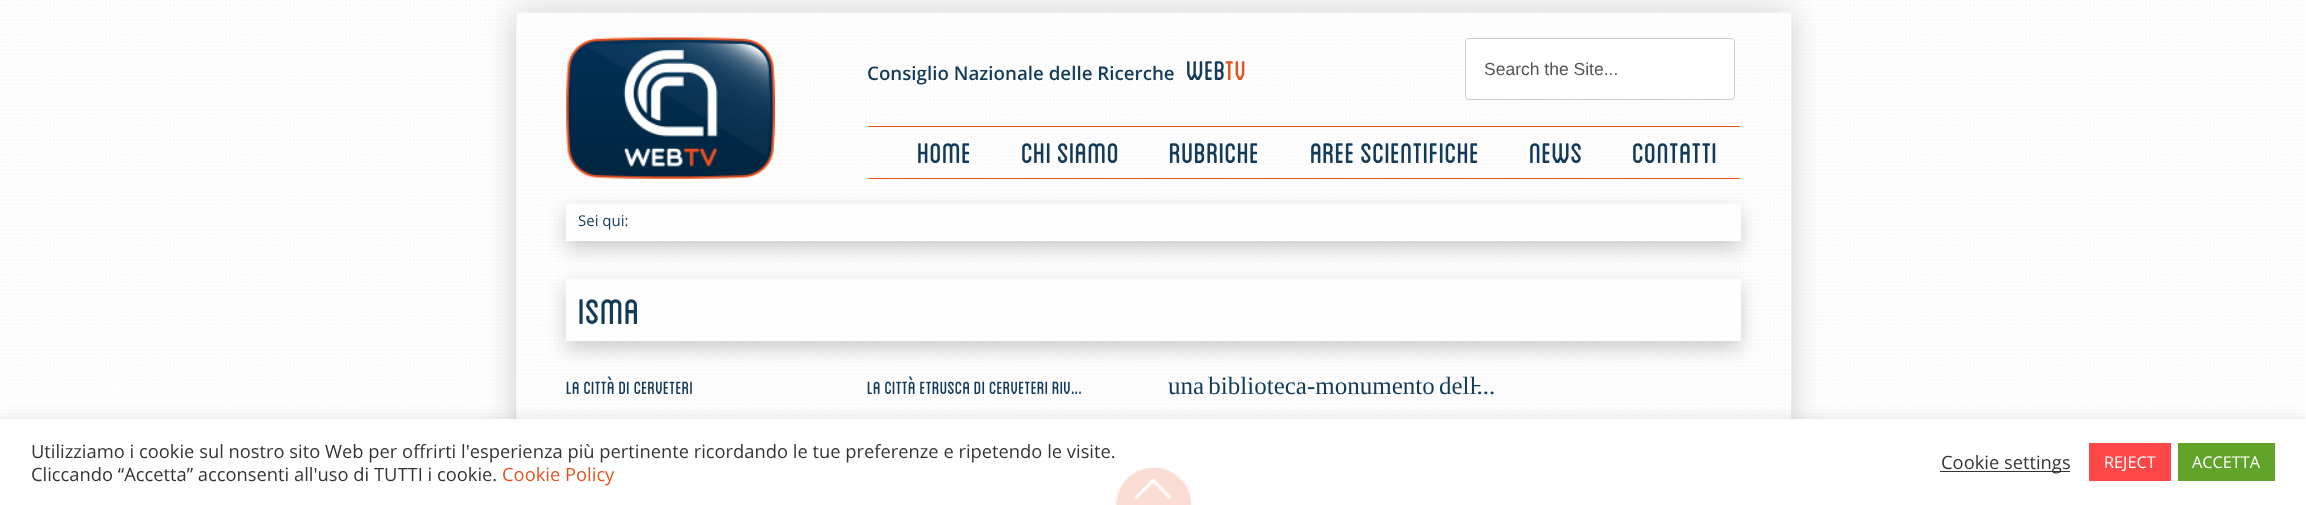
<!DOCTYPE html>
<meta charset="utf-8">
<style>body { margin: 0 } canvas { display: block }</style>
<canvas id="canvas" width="2306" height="505"></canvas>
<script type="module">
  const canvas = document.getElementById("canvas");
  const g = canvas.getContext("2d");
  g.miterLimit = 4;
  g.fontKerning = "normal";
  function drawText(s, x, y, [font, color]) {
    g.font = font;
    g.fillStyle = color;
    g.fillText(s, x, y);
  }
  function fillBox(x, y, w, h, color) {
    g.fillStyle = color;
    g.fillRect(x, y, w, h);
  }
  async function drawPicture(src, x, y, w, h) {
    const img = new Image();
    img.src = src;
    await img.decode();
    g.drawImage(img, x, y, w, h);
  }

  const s1 = ["600 18.75px Open Sans", "#123B5A"];
  const s2 = ["38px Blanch", "#123B5A"];
  const s3 = ["38px Blanch", "#E7511E"];
  const s4 = ["17.5px Liberation Sans", "#555555"];
  const s5 = ["40px Blanch", "#123B5A"];
  const s6 = ["15px Open Sans", "#123B5A"];
  const s7 = ["50px Blanch", "#123B5A"];
  const s8 = ["25px Blanch", "#123B5A"];
  const s9 = ["25px Liberation Serif", "#123B5A"];
  const s10 = ["18.33px Open Sans", "#333333"];
  const s11 = ["18.33px Open Sans", "#E7511E"];
  const s12 = ["16.25px Open Sans", "#FFFFFF"];

  fillBox(0, 0, 2306, 505, "#FFFFFF");
  await drawPicture("pic1.png", 0, 0, 2306, 419);
  g.fillStyle = "#CCCCCC";
  g.filter = "blur(15.5px)";
  g.beginPath();
  g.rect(516, 13, 1275, 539);
  g.fill();
  g.filter = "none";
  fillBox(516, 13, 1275, 406, "#EEEEEE");
  await drawPicture("pic2.png", 516, 12, 1276, 407);
  await drawPicture("pic3.png", 566, 37, 209, 142);
  drawText("Consiglio Nazionale delle Ricerche", 867, 80, s1);
  drawText("web", 1186, 80, s2);
  drawText("tv", 1225, 80, s3);
  g.fillStyle = "#FFFFFF";
  g.beginPath();
  g.roundRect(1465.5, 38.5, 269, 61, 3.5);
  g.fill();
  g.strokeStyle = "#CCCCCC";
  g.stroke();
  drawText("Search the Site...", 1484, 75, s4);
  fillBox(868, 126, 872, 1, "#E7511E");
  fillBox(868, 178, 872, 1, "#E7511E");
  drawText("home", 917, 163, s5);
  drawText("chi siamo", 1021, 163, s5);
  drawText("rubriche", 1169, 163, s5);
  drawText("aree scientifiche", 1310, 163, s5);
  drawText("news", 1529, 163, s5);
  drawText("contatti", 1632, 163, s5);
  g.save();
  g.beginPath();
  g.moveTo(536, 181);
  g.lineTo(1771, 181);
  g.lineTo(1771, 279);
  g.lineTo(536, 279);
  g.closePath();
  g.moveTo(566, 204);
  g.lineTo(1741, 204);
  g.lineTo(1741, 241);
  g.lineTo(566, 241);
  g.closePath();
  g.clip("evenodd");
  g.fillStyle = "#CCCCCC";
  g.filter = "blur(9.5px)";
  g.beginPath();
  g.rect(566, 211, 1175, 38);
  g.fill();
  g.filter = "none";
  g.restore();
  fillBox(566, 204, 1175, 37, "rgba(255, 255, 255, 0.5)");
  drawText("Sei qui:", 578, 226, s6);
  g.save();
  g.beginPath();
  g.moveTo(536, 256);
  g.lineTo(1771, 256);
  g.lineTo(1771, 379);
  g.lineTo(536, 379);
  g.closePath();
  g.moveTo(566, 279);
  g.lineTo(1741, 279);
  g.lineTo(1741, 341);
  g.lineTo(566, 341);
  g.closePath();
  g.clip("evenodd");
  g.fillStyle = "#CCCCCC";
  g.filter = "blur(9.5px)";
  g.beginPath();
  g.rect(566, 286, 1175, 63);
  g.fill();
  g.filter = "none";
  g.restore();
  fillBox(566, 279, 1175, 62, "rgba(255, 255, 255, 0.5)");
  drawText("isma", 578, 324, s7);
  drawText("la città di cerveteri", 566, 394, s8);
  drawText("la città etrusca di cerveteri riv...", 867, 394, s8);
  g.wordSpacing = "-2px";
  drawText("una biblioteca-monumento dell̵...", 1168, 394, s9);
  g.fillStyle = "rgba(172, 171, 171, 0.3)";
  g.filter = "blur(6px)";
  g.beginPath();
  g.rect(0, 418, 2306, 86);
  g.fill();
  g.filter = "none";
  fillBox(0, 419, 2306, 86, "#FFFFFF");
  await drawPicture("pic4.png", 1116, 468, 76, 37);
  g.wordSpacing = "0px";
  drawText("Utilizziamo i cookie sul nostro sito Web per offrirti l'esperienza più pertinente ricordando le tue preferenze e ripetendo le visite.", 31, 458, s10);
  drawText("Cliccando “Accetta” acconsenti all'uso di TUTTI i cookie.", 31, 481, s10);
  drawText("Cookie Policy", 502, 481, s11);
  fillBox(1940, 471, 130, 1, "#333333");
  drawText("Cookie settings", 1941, 469, s10);
  fillBox(2089, 443, 82, 38, "#FF4747");
  drawText("REJECT", 2104, 468, s12);
  fillBox(2178, 443, 97, 38, "#61A229");
  drawText("ACCETTA", 2192, 468, s12);
</script>
